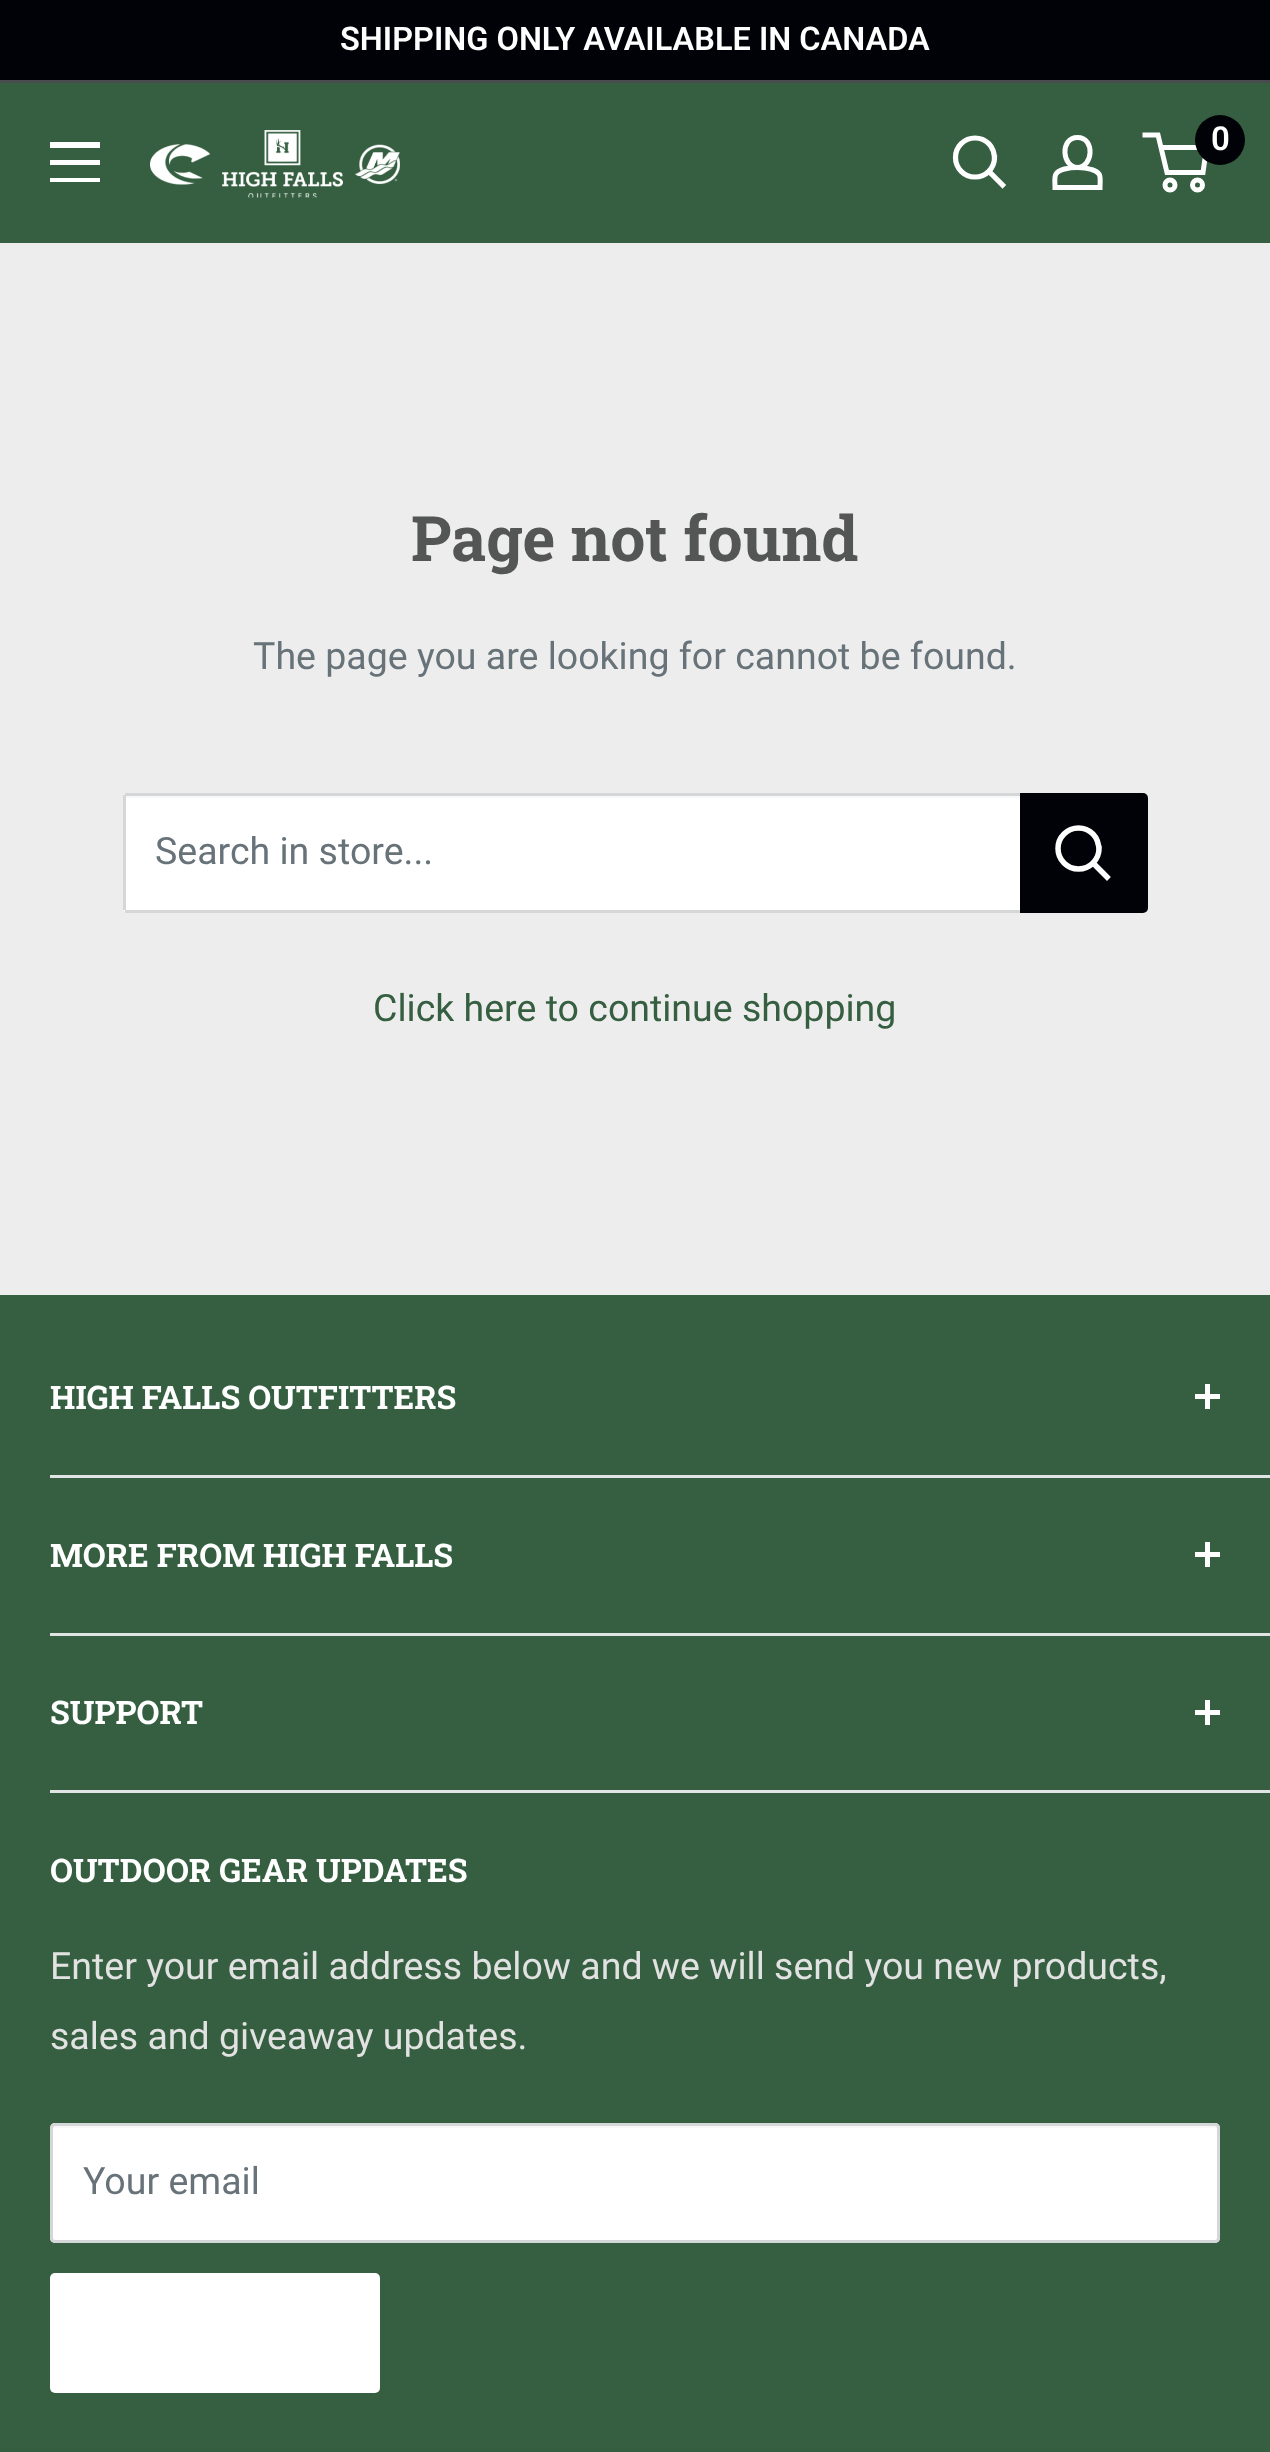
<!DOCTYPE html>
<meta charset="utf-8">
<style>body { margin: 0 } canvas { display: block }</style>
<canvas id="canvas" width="1270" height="2452"></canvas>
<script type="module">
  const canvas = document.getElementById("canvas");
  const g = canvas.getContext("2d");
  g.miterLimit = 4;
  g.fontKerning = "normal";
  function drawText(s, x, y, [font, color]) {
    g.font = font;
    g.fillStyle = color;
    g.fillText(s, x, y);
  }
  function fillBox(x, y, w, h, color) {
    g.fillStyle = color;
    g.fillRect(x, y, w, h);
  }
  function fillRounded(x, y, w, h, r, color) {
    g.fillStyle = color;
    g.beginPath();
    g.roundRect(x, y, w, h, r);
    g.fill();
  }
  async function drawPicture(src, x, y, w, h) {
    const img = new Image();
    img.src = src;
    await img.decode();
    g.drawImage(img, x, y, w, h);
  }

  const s1 = ["600 32.5px Roboto", "#FFFFFF"];
  const s2 = ["600 33px Roboto", "#FFFFFF"];
  const s3 = ["bold 62.5px Roboto Slab", "#545655"];
  const s4 = ["37.5px Roboto", "#677279"];
  const s5 = ["37.5px Roboto", "#355F40"];
  const s6 = ["bold 32.5px Roboto Slab", "#FFFFFF"];
  const s7 = ["37.5px Roboto", "#E1E2E1"];

  fillBox(0, 0, 1270, 2452, "#EDEDED");
  fillBox(0, 0, 1270, 80, "#000208");
  fillBox(0, 80, 1270, 3, "#494B4F");
  drawText("SHIPPING ONLY AVAILABLE IN CANADA", 340, 50, s1);
  fillBox(0, 83, 1270, 160, "#355F40");
  g.fillStyle = "#FFFFFF";
  g.beginPath();
  g.moveTo(50, 178);
  g.lineTo(100, 178);
  g.lineTo(100, 182);
  g.lineTo(50, 182);
  g.closePath();
  g.moveTo(50, 142);
  g.lineTo(100, 142);
  g.lineTo(100, 148);
  g.lineTo(50, 148);
  g.closePath();
  g.moveTo(50, 160);
  g.lineTo(100, 160);
  g.lineTo(100, 165);
  g.lineTo(50, 165);
  g.closePath();
  g.fill("evenodd");
  await drawPicture("pic1.png", 150, 130, 250, 68);
  g.beginPath();
  g.moveTo(1002.5, 185);
  g.lineTo(989, 171.5);
  g.strokeStyle = "#FFFFFF";
  g.lineWidth = 5.2;
  g.lineCap = "square";
  g.stroke();
  g.beginPath();
  g.arc(975, 157.5, 19.5, 0, Math.PI * 2);
  g.stroke();
  g.beginPath();
  g.moveTo(1077.5, 167.5);
  g.bezierCurveTo(1082, 167.5, 1087, 168, 1091.5, 169.5);
  g.bezierCurveTo(1102.5, 172.5, 1100, 178, 1100, 187.5);
  g.lineTo(1055, 187.5);
  g.bezierCurveTo(1055, 177.5, 1052.5, 172, 1064.5, 169);
  g.bezierCurveTo(1068.5, 168, 1073, 167.5, 1077.5, 167.5);
  g.closePath();
  g.moveTo(1077.5, 167.5);
  g.bezierCurveTo(1062, 167.5, 1059.5, 137.5, 1077.5, 137.5);
  g.bezierCurveTo(1095.5, 137.5, 1093, 167.5, 1077.5, 167.5);
  g.closePath();
  g.lineWidth = 5;
  g.lineCap = "butt";
  g.stroke();
  g.beginPath();
  g.arc(1170, 185, 5, 0, Math.PI * 2);
  g.stroke();
  g.beginPath();
  g.arc(1197.5, 185, 5, 0, Math.PI * 2);
  g.stroke();
  g.beginPath();
  g.moveTo(1161, 147.5);
  g.lineTo(1206.5, 147.5);
  g.lineTo(1203, 172.5);
  g.lineTo(1167, 172.5);
  g.lineTo(1158, 135);
  g.lineTo(1142.5, 135);
  g.stroke();
  g.fillStyle = "#000208";
  g.beginPath();
  g.arc(1220, 140, 25, 0, Math.PI * 2);
  g.fill();
  drawText("0", 1211, 150, s2);
  drawText("Page not found", 411, 561, s3);
  drawText("The page you are looking for cannot be found.", 253, 669, s4);
  g.fillStyle = "#FFFFFF";
  g.beginPath();
  g.roundRect(123, 793, 897, 120, [5, 0, 0, 5]);
  g.fill();
  g.fillStyle = "#F8F8F8";
  g.beginPath();
  g.moveTo(128, 798);
  g.lineTo(1020, 798);
  g.lineTo(1020, 795);
  g.lineTo(128, 795);
  g.bezierCurveTo(125, 795, 125, 798, 125, 800);
  g.bezierCurveTo(125, 799, 126, 798, 128, 798);
  g.closePath();
  g.fill();
  fillBox(125, 793, 895, 3, "#D4D6D8");
  fillBox(125, 910, 895, 3, "#D4D6D8");
  fillBox(123, 795, 3, 115, "#D4D6D8");
  drawText("Search in store...", 155, 864, s4);
  g.fillStyle = "#000208";
  g.beginPath();
  g.roundRect(1020, 793, 128, 120, [0, 5, 5, 0]);
  g.fill();
  g.beginPath();
  g.moveTo(1107, 877);
  g.lineTo(1093.5, 863.5);
  g.lineWidth = 5.5;
  g.lineCap = "square";
  g.stroke();
  g.beginPath();
  g.arc(1078.5, 848.5, 20.5, 0, Math.PI * 2);
  g.stroke();
  drawText("Click here to continue shopping", 373, 1021, s5);
  fillBox(0, 1295, 1270, 1157, "#355F40");
  fillBox(50, 1475, 1220, 3, "#E1E3E4");
  drawText("HIGH FALLS OUTFITTERS", 50, 1409, s6);
  fillBox(1205, 1384, 5, 25, "#FFFFFF");
  fillBox(1195, 1394, 25, 5, "#FFFFFF");
  fillBox(50, 1633, 1220, 3, "#E1E3E4");
  drawText("MORE FROM HIGH FALLS", 50, 1567, s6);
  fillBox(1205, 1542, 5, 25, "#FFFFFF");
  fillBox(1195, 1552, 25, 5, "#FFFFFF");
  fillBox(50, 1790, 1220, 3, "#E1E3E4");
  drawText("SUPPORT", 50, 1724, s6);
  fillBox(1205, 1700, 5, 25, "#FFFFFF");
  fillBox(1195, 1710, 25, 5, "#FFFFFF");
  drawText("OUTDOOR GEAR UPDATES", 50, 1882, s6);
  drawText("Enter your email address below and we will send you new products,", 50, 1979, s7);
  drawText("sales and giveaway updates.", 50, 2049, s7);
  fillRounded(50, 2123, 1170, 120, 5, "#FFFFFF");
  g.fillStyle = "#F8F8F8";
  g.beginPath();
  g.moveTo(55, 2128);
  g.lineTo(1215, 2128);
  g.bezierCurveTo(1216, 2128, 1218, 2129, 1218, 2130);
  g.lineTo(1218, 2128);
  g.bezierCurveTo(1218, 2126, 1217, 2125, 1216, 2125);
  g.lineTo(56, 2125);
  g.bezierCurveTo(54, 2125, 53, 2126, 53, 2128);
  g.lineTo(53, 2129);
  g.closePath();
  g.fill();
  g.beginPath();
  g.roundRect(51.5, 2124.5, 1167, 117, 3.5);
  g.strokeStyle = "#D4D6D8";
  g.lineWidth = 3;
  g.stroke();
  drawText("Your email", 83, 2194, s4);
  fillRounded(50, 2273, 330, 120, 5, "#FFFFFF");
</script>
